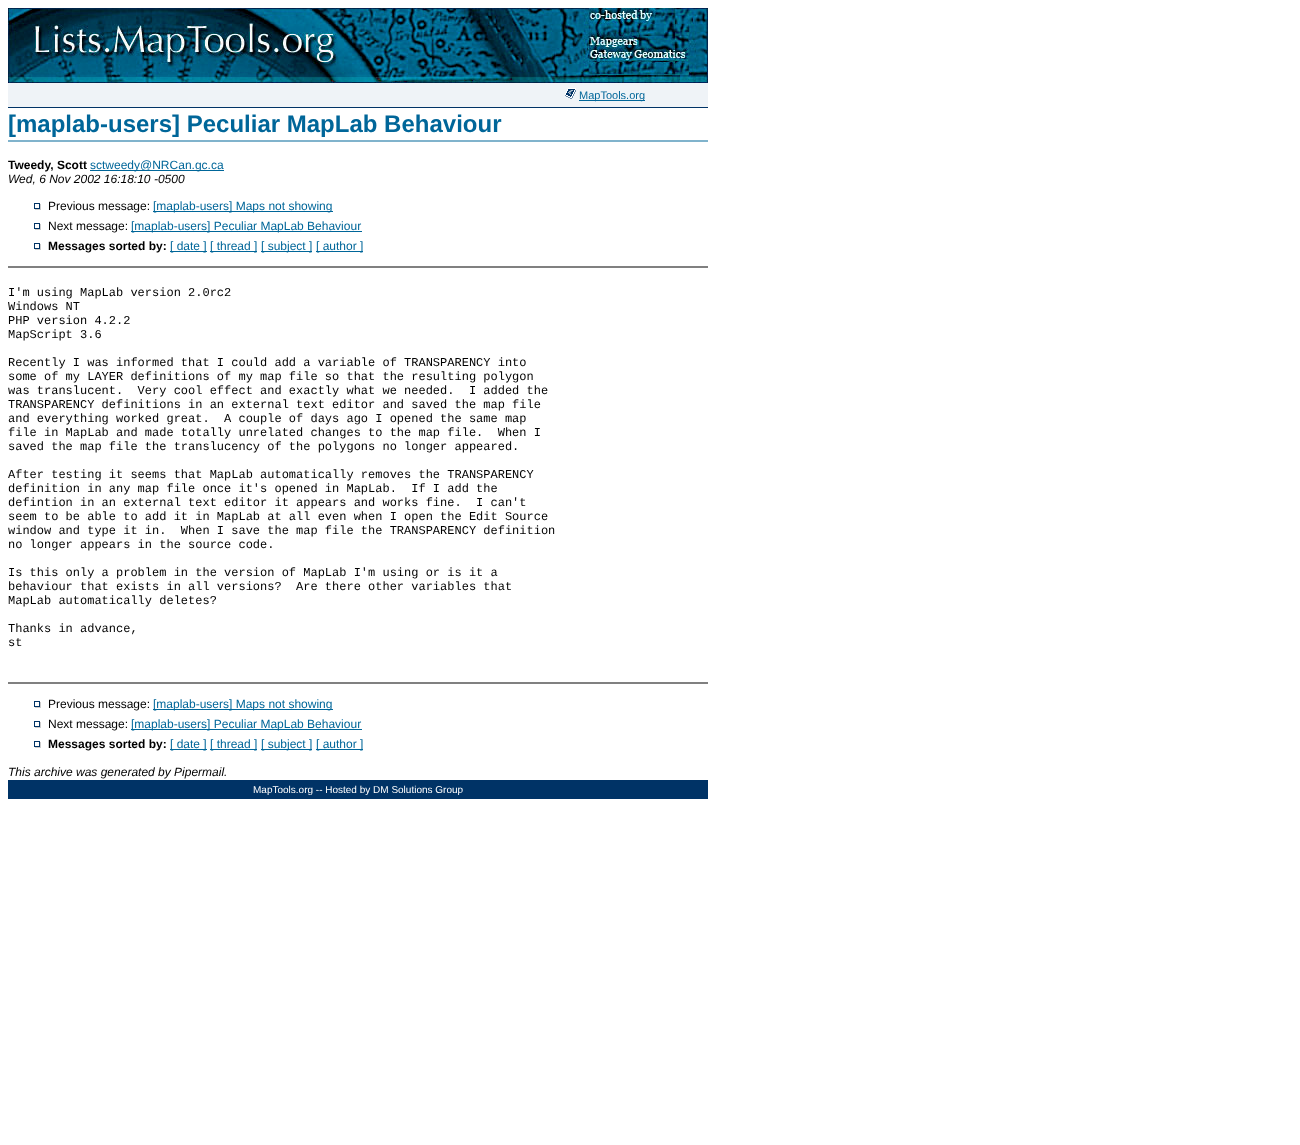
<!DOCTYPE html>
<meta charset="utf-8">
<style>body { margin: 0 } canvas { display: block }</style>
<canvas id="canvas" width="1300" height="1145"></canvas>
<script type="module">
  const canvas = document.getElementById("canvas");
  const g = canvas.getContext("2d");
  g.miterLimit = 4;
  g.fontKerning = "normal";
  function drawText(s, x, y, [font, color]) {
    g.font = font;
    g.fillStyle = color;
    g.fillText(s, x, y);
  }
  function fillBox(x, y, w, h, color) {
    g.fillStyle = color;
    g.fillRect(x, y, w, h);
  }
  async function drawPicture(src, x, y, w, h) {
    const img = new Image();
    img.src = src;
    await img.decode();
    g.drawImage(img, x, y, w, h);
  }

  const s1 = ["11px Liberation Sans", "#006699"];
  const s2 = ["bold 24px Liberation Sans", "#006699"];
  const s3 = ["bold 12px Liberation Sans", "#000000"];
  const s4 = ["12px Liberation Sans", "#006699"];
  const s5 = ["italic 12px Liberation Sans", "#000000"];
  const s6 = ["12px Liberation Sans", "#000000"];
  const s7 = ["12px Liberation Mono", "#000000"];
  const s8 = ["10px Liberation Sans", "#FFFFFF"];

  fillBox(0, 0, 1300, 1145, "#FFFFFF");
  await drawPicture("pic1.png", 8, 8, 700, 75);
  fillBox(8, 83, 700, 24, "#EFF3F7");
  await drawPicture("pic2.png", 565, 88, 11, 11);
  fillBox(579, 100, 66, 1, "#006699");
  drawText("MapTools.org", 579, 99, s1);
  fillBox(8, 107, 700, 1, "#003366");
  fillBox(8, 140, 700, 2, "#80B3CC");
  drawText("[maplab-users] Peculiar MapLab Behaviour", 8, 132, s2);
  drawText("Tweedy, Scott", 8, 169, s3);
  fillBox(90, 170, 134, 1, "#006699");
  drawText("sctweedy@NRCan.gc.ca", 90, 169, s4);
  drawText("Wed, 6 Nov 2002 16:18:10 -0500", 8, 183, s5);
  await drawPicture("pic3.png", 34, 203, 7, 7);
  drawText("Previous message:", 48, 210, s6);
  fillBox(153, 211, 180, 1, "#006699");
  drawText("[maplab-users] Maps not showing", 153, 210, s4);
  await drawPicture("pic3.png", 34, 223, 7, 7);
  drawText("Next message:", 48, 230, s6);
  fillBox(131, 231, 231, 1, "#006699");
  drawText("[maplab-users] Peculiar MapLab Behaviour", 131, 230, s4);
  await drawPicture("pic3.png", 34, 243, 7, 7);
  drawText("Messages sorted by:", 48, 250, s3);
  fillBox(170, 251, 37, 1, "#006699");
  drawText("[ date ]", 170, 250, s4);
  fillBox(210, 251, 47, 1, "#006699");
  drawText("[ thread ]", 210, 250, s4);
  fillBox(261, 251, 51, 1, "#006699");
  drawText("[ subject ]", 261, 250, s4);
  fillBox(316, 251, 47, 1, "#006699");
  drawText("[ author ]", 316, 250, s4);
  fillBox(8, 266, 700, 2, "#808080");
  drawText("I'm using MapLab version 2.0rc2", 8, 296, s7);
  drawText("Windows NT", 8, 310, s7);
  drawText("PHP version 4.2.2", 8, 324, s7);
  drawText("MapScript 3.6", 8, 338, s7);
  drawText("Recently I was informed that I could add a variable of TRANSPARENCY into", 8, 366, s7);
  drawText("some of my LAYER definitions of my map file so that the resulting polygon", 8, 380, s7);
  drawText("was translucent.  Very cool effect and exactly what we needed.  I added the", 8, 394, s7);
  drawText("TRANSPARENCY definitions in an external text editor and saved the map file", 8, 408, s7);
  drawText("and everything worked great.  A couple of days ago I opened the same map", 8, 422, s7);
  drawText("file in MapLab and made totally unrelated changes to the map file.  When I", 8, 436, s7);
  drawText("saved the map file the translucency of the polygons no longer appeared.", 8, 450, s7);
  drawText("After testing it seems that MapLab automatically removes the TRANSPARENCY", 8, 478, s7);
  drawText("definition in any map file once it's opened in MapLab.  If I add the", 8, 492, s7);
  drawText("defintion in an external text editor it appears and works fine.  I can't", 8, 506, s7);
  drawText("seem to be able to add it in MapLab at all even when I open the Edit Source", 8, 520, s7);
  drawText("window and type it in.  When I save the map file the TRANSPARENCY definition", 8, 534, s7);
  drawText("no longer appears in the source code.", 8, 548, s7);
  drawText("Is this only a problem in the version of MapLab I'm using or is it a", 8, 576, s7);
  drawText("behaviour that exists in all versions?  Are there other variables that", 8, 590, s7);
  drawText("MapLab automatically deletes?", 8, 604, s7);
  drawText("Thanks in advance,", 8, 632, s7);
  drawText("st", 8, 646, s7);
  fillBox(8, 682, 700, 2, "#808080");
  await drawPicture("pic3.png", 34, 701, 7, 7);
  drawText("Previous message:", 48, 708, s6);
  fillBox(153, 709, 180, 1, "#006699");
  drawText("[maplab-users] Maps not showing", 153, 708, s4);
  await drawPicture("pic3.png", 34, 721, 7, 7);
  drawText("Next message:", 48, 728, s6);
  fillBox(131, 729, 231, 1, "#006699");
  drawText("[maplab-users] Peculiar MapLab Behaviour", 131, 728, s4);
  await drawPicture("pic3.png", 34, 741, 7, 7);
  drawText("Messages sorted by:", 48, 748, s3);
  fillBox(170, 749, 37, 1, "#006699");
  drawText("[ date ]", 170, 748, s4);
  fillBox(210, 749, 47, 1, "#006699");
  drawText("[ thread ]", 210, 748, s4);
  fillBox(261, 749, 51, 1, "#006699");
  drawText("[ subject ]", 261, 748, s4);
  fillBox(316, 749, 47, 1, "#006699");
  drawText("[ author ]", 316, 748, s4);
  drawText("This archive was generated by Pipermail.", 8, 776, s5);
  fillBox(8, 780, 700, 19, "#003366");
  drawText("MapTools.org -- Hosted by DM Solutions Group", 253, 793, s8);
</script>
